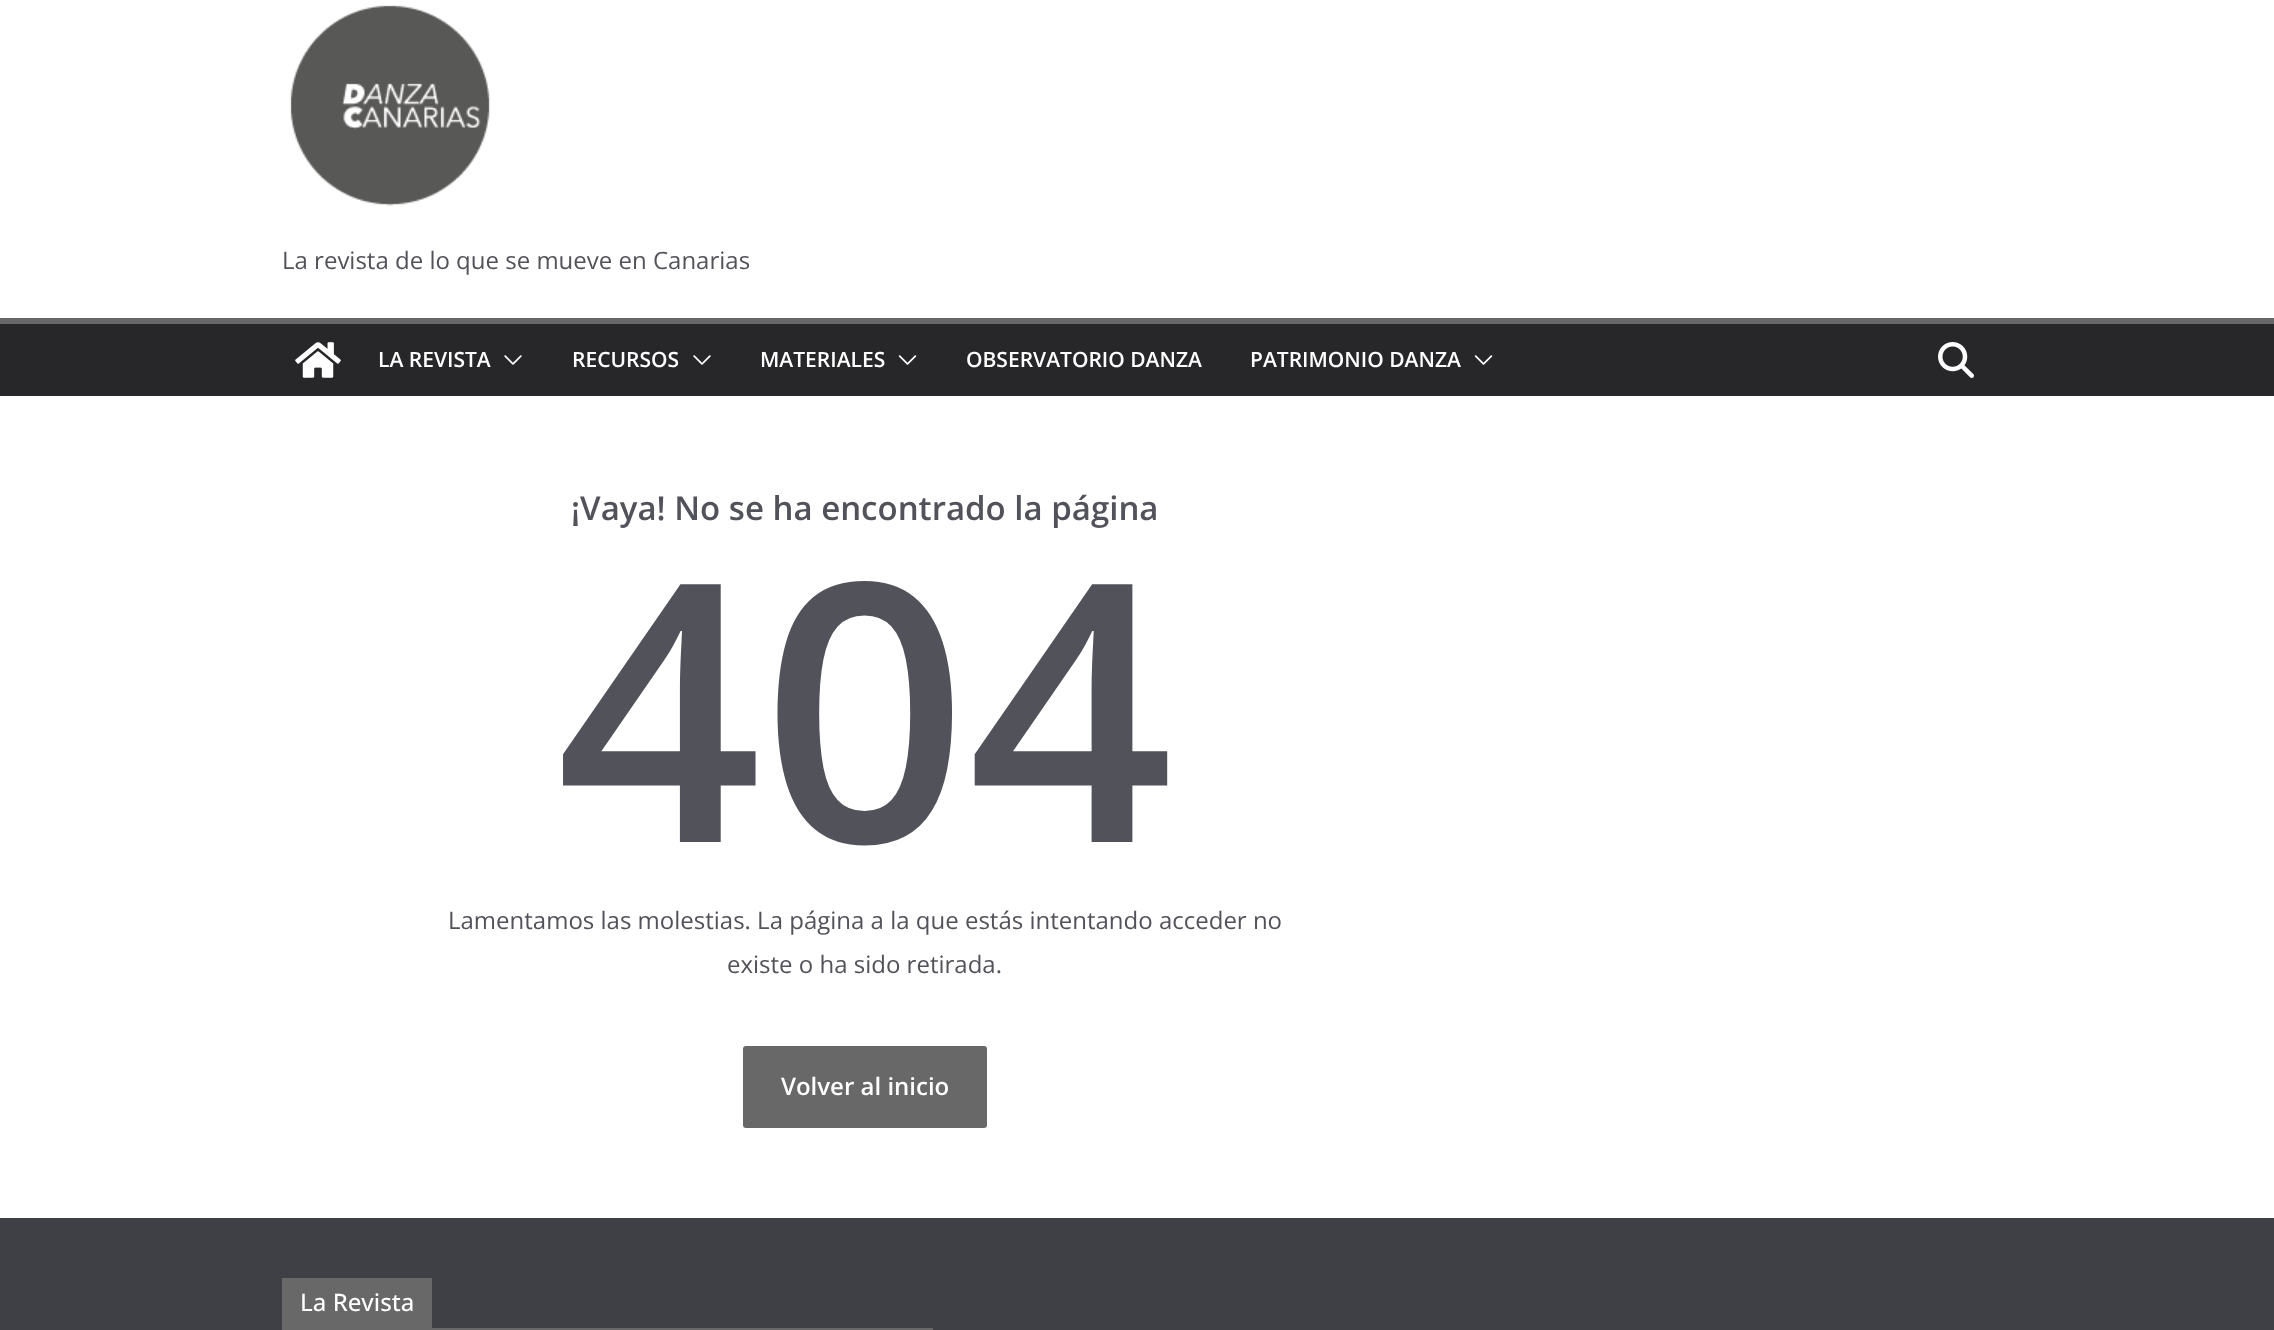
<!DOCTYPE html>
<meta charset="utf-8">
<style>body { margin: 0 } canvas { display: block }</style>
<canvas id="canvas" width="2274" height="1330"></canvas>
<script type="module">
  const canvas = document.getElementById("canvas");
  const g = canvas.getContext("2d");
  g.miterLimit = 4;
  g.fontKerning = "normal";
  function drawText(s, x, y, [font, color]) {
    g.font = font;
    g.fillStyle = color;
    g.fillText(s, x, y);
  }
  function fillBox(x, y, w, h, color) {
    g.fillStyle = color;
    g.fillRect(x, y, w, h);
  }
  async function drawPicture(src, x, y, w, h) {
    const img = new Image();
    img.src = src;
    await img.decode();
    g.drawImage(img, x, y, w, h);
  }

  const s1 = ["24px Open Sans", "#52525B"];
  const s2 = ["600 21px Open Sans", "#FFFFFF"];
  const s3 = ["600 33px Open Sans", "#52525B"];
  const s4 = ["600 360px Open Sans", "#52525B"];
  const s5 = ["600 24px Open Sans", "#FFFFFF"];
  const s6 = ["500 24px Open Sans", "#FFFFFF"];

  fillBox(0, 0, 2274, 1330, "#FFFFFF");
  await drawPicture("pic1.png", 290, 5, 200, 201);
  drawText("La revista de lo que se mueve en Canarias", 282, 269, s1);
  fillBox(0, 324, 2274, 72, "#27272A");
  fillBox(0, 318, 2274, 6, "#686868");
  await drawPicture("pic2.png", 295, 342, 46, 36);
  drawText("LA REVISTA", 378, 367, s2);
  await drawPicture("pic3.png", 504, 355, 18, 10);
  drawText("RECURSOS", 572, 367, s2);
  await drawPicture("pic3.png", 693, 355, 18, 10);
  drawText("MATERIALES", 760, 367, s2);
  await drawPicture("pic4.png", 898, 355, 19, 10);
  drawText("OBSERVATORIO DANZA", 966, 367, s2);
  drawText("PATRIMONIO DANZA", 1250, 367, s2);
  await drawPicture("pic4.png", 1474, 355, 19, 10);
  await drawPicture("pic5.png", 1938, 342, 36, 36);
  drawText("¡Vaya! No se ha encontrado la página", 571, 520, s3);
  drawText("404", 556, 842, s4);
  drawText("Lamentamos las molestias. La página a la que estás intentando acceder no", 448, 929, s1);
  drawText("existe o ha sido retirada.", 727, 973, s1);
  g.fillStyle = "#686868";
  g.beginPath();
  g.roundRect(744, 1047, 242, 80, 2);
  g.fill();
  g.strokeStyle = "#686868";
  g.lineWidth = 2;
  g.stroke();
  drawText("Volver al inicio", 781, 1095, s5);
  fillBox(0, 1218, 2274, 112, "#3F3F46");
  fillBox(282, 1328, 651, 2, "#686868");
  fillBox(282, 1278, 150, 50, "#686868");
  drawText("La Revista", 300, 1311, s6);
</script>
